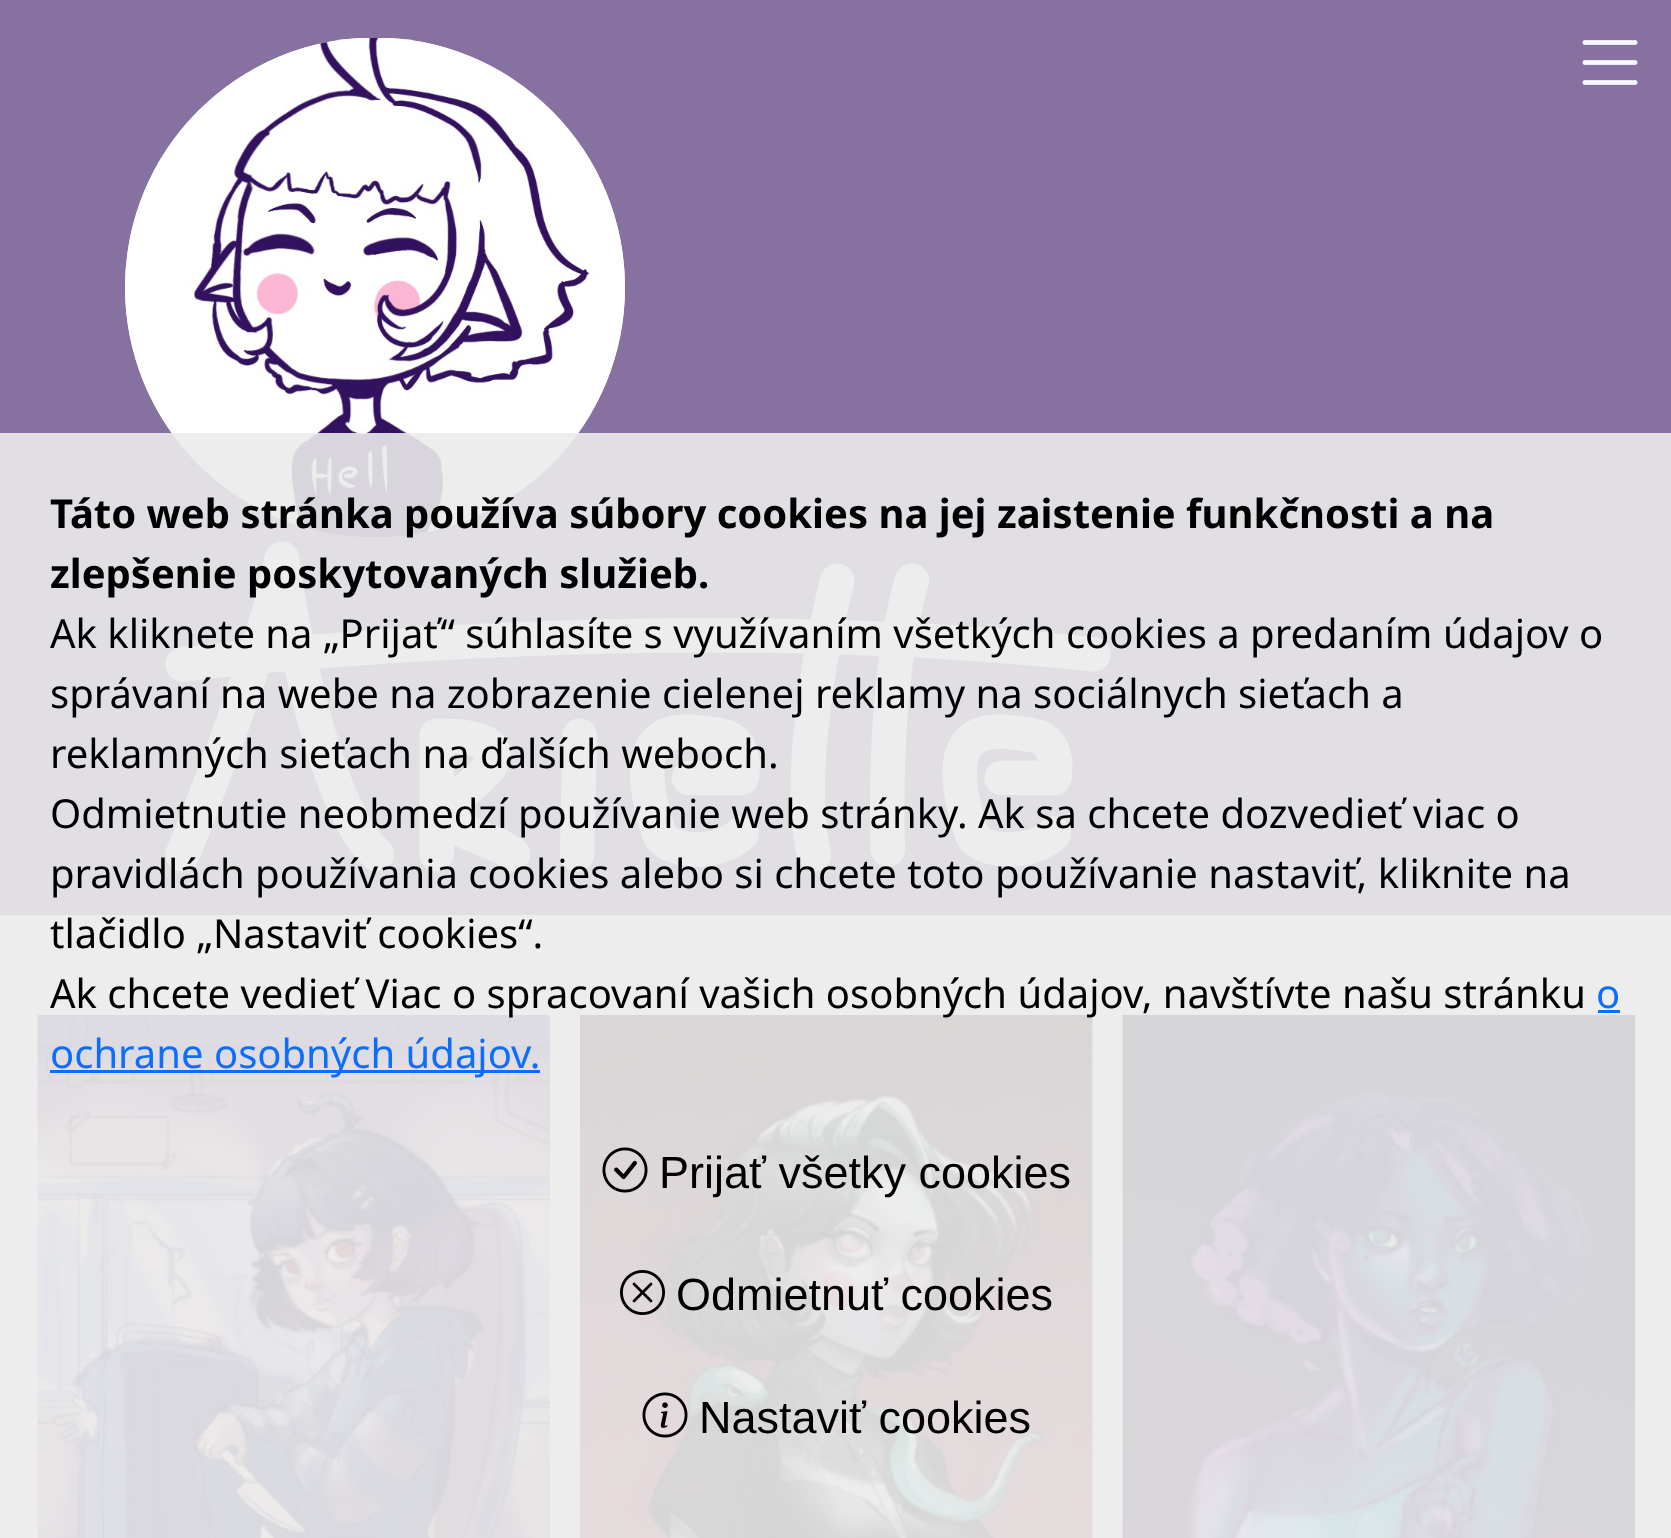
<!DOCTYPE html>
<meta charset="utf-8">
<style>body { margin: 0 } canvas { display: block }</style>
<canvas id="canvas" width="1671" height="1538"></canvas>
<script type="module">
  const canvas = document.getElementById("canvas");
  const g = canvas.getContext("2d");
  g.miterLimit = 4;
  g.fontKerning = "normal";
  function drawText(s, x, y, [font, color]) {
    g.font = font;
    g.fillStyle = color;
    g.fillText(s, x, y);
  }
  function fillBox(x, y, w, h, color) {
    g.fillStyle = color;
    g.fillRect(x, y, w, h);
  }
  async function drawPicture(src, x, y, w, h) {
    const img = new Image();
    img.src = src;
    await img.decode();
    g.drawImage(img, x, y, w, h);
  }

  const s1 = ["bold 40px Noto Sans", "#000000"];
  const s2 = ["40px Noto Sans", "#000000"];
  const s3 = ["40px Noto Sans", "#0D6EFD"];
  const s4 = ["45px Liberation Sans", "#000000"];

  fillBox(0, 0, 1671, 1538, "#FFFFFF");
  fillBox(0, 0, 1671, 915, "#8671A1");
  await drawPicture("pic1.png", 125, 38, 500, 499);
  await drawPicture("pic2.png", 165, 541, 946, 331);
  await drawPicture("pic3.png", 1582, 40, 56, 45);
  await drawPicture("pic7.png", 37, 1015, 513, 523);
  await drawPicture("pic8.png", 580, 1015, 513, 523);
  await drawPicture("pic9.png", 1122, 1015, 513, 523);
  fillBox(0, 433, 1671, 1105, "rgba(235, 235, 235, 0.9)");
  drawText("Táto web stránka používa súbory cookies na jej zaistenie funkčnosti a na", 50, 528, s1);
  drawText("zlepšenie poskytovaných služieb.", 50, 588, s1);
  drawText("Ak kliknete na „Prijať“ súhlasíte s využívaním všetkých cookies a predaním údajov o", 50, 648, s2);
  drawText("správaní na webe na zobrazenie cielenej reklamy na sociálnych sieťach a", 50, 708, s2);
  drawText("reklamných sieťach na ďalších weboch.", 50, 768, s2);
  drawText("Odmietnutie neobmedzí používanie web stránky. Ak sa chcete dozvedieť viac o", 50, 828, s2);
  drawText("pravidlách používania cookies alebo si chcete toto používanie nastaviť, kliknite na", 50, 888, s2);
  drawText("tlačidlo „Nastaviť cookies“.", 50, 948, s2);
  drawText("Ak chcete vedieť Viac o spracovaní vašich osobných údajov, navštívte našu stránku", 50, 1008, s2);
  drawText("o", 1596, 1008, s3);
  fillBox(1598, 1010, 22, 3, "#0D6EFD");
  fillBox(50, 1070, 490, 3, "#0D6EFD");
  drawText("ochrane osobných údajov.", 50, 1068, s3);
  await drawPicture("pic4.png", 602, 1147, 46, 46);
  drawText("Prijať všetky cookies", 659, 1188, s4);
  await drawPicture("pic5.png", 620, 1270, 45, 45);
  drawText("Odmietnuť cookies", 676, 1310, s4);
  await drawPicture("pic6.png", 642, 1392, 46, 46);
  drawText("Nastaviť cookies", 699, 1433, s4);
</script>
